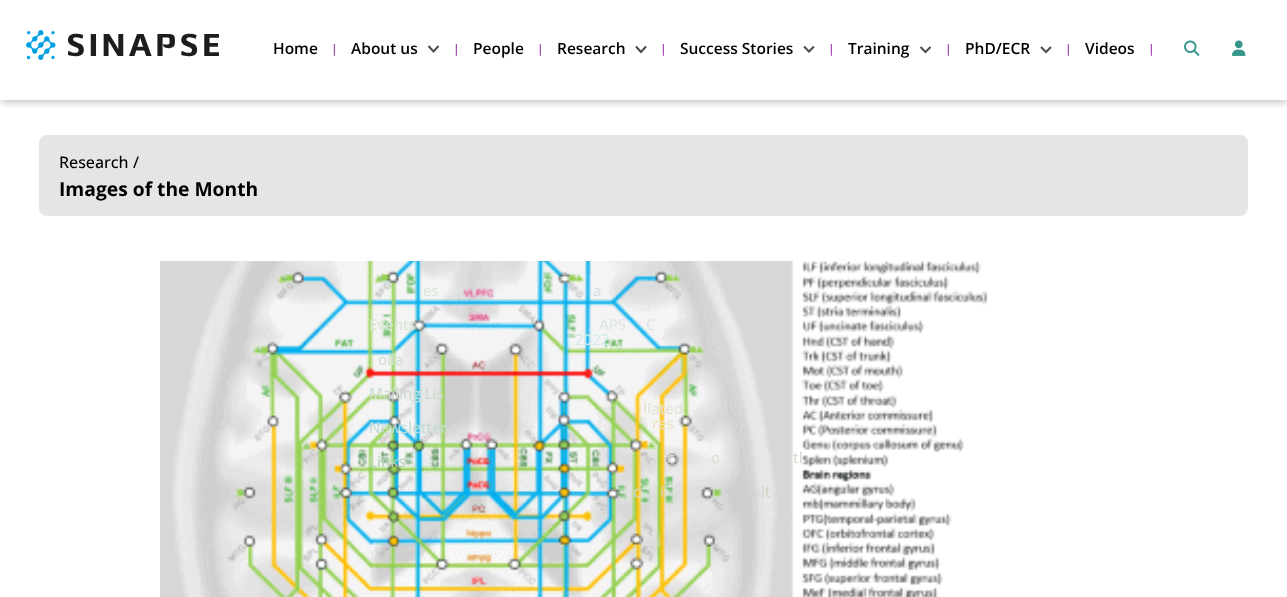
<!DOCTYPE html>
<meta charset="utf-8">
<style>body { margin: 0 } canvas { display: block }</style>
<canvas id="canvas" width="1287" height="597"></canvas>
<script type="module">
  const canvas = document.getElementById("canvas");
  const g = canvas.getContext("2d");
  g.miterLimit = 4;
  g.fontKerning = "normal";
  function drawText(s, x, y, [font, color]) {
    g.font = font;
    g.fillStyle = color;
    g.fillText(s, x, y);
  }
  function fillBox(x, y, w, h, color) {
    g.fillStyle = color;
    g.fillRect(x, y, w, h);
  }
  function fillRounded(x, y, w, h, r, color) {
    g.fillStyle = color;
    g.beginPath();
    g.roundRect(x, y, w, h, r);
    g.fill();
  }
  async function drawPicture(src, x, y, w, h) {
    const img = new Image();
    img.src = src;
    await img.decode();
    g.drawImage(img, x, y, w, h);
  }

  const s1 = ["500 16px Open Sans", "#000000"];
  const s2 = ["bold 19.25px Open Sans", "#000000"];
  const s3 = ["600 15.5px Open Sans", "#000000"];
  const s4 = ["500 12px Open Sans", "#8E18A1"];
  const s5 = ["500 15px Open Sans", "#D9E9DC"];
  const s6 = ["500 15px Open Sans", "#D5E6CF"];
  const s7 = ["500 15px Open Sans", "#D2E0D4"];
  const s8 = ["500 15px Open Sans", "#E4E3D5"];
  const s9 = ["500 15px Open Sans", "#E8E4C4"];
  const s10 = ["500 15px Open Sans", "#DBDBD1"];
  const s11 = ["500 15px Open Sans", "#D1D6C2"];
  const s12 = ["500 15px Open Sans", "#D3D1B0"];
  const s13 = ["500 15px Open Sans", "#CADCD0"];
  const s14 = ["500 15px Open Sans", "#C5DBD6"];
  const s15 = ["500 15px Open Sans", "#B6D5B7"];
  const s16 = ["500 15px Open Sans", "#D8E0E3"];
  const s17 = ["500 15px Open Sans", "#DFE5E7"];
  const s18 = ["500 15px Open Sans", "#D3EAED"];

  fillBox(0, 0, 1287, 597, "#FFFFFF");
  fillRounded(39, 135, 1209, 81, 8, "#E5E5E5");
  drawText("Research", 59, 168, s1);
  drawText("/", 133, 168, s1);
  drawText("Images of the Month", 59, 196, s2);
  await drawPicture("pic1.png", 160, 261, 828, 336);
  g.save();
  g.beginPath();
  g.rect(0, 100, 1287, 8);
  g.clip();
  g.fillStyle = "rgba(0, 0, 0, 0.3)";
  g.filter = "blur(5px)";
  g.beginPath();
  g.rect(1, 1, 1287, 100);
  g.fill();
  g.filter = "none";
  g.restore();
  await drawPicture("pic2.png", 26, 30, 193, 30);
  drawText("About us", 351, 54, s3);
  g.beginPath();
  g.moveTo(428.5, 46);
  g.lineTo(433.5, 51.5);
  g.lineTo(438.5, 46);
  g.strokeStyle = "#4D4D4D";
  g.lineWidth = 2;
  g.stroke();
  drawText("|", 453, 53, s4);
  drawText("es", 423, 296, s5);
  drawText("Events", 369, 330, s6);
  drawText("olla", 378, 365, s7);
  drawText("liated", 643, 414, s8);
  drawText("res", 652, 429, s9);
  drawText("c", 667, 463, s10);
  drawText("o", 711, 463, s10);
  drawText("tl", 793, 463, s10);
  drawText("c", 633, 497, s11);
  drawText("i", 660, 497, s11);
  drawText("it", 761, 497, s11);
  drawText("i", 657, 546, s12);
  drawText("Mailing Lis", 369, 399, s13);
  drawText("Newsletter", 369, 433, s14);
  drawText("Links", 369, 467, s15);
  await drawPicture("pic3.png", 1184, 40, 16, 16);
  await drawPicture("pic4.png", 1232, 40, 14, 16);
  drawText("Home", 273, 54, s3);
  drawText("|", 331, 53, s4);
  drawText("People", 473, 54, s3);
  drawText("|", 537, 53, s4);
  drawText("Research", 557, 54, s3);
  g.beginPath();
  g.moveTo(636, 46.5);
  g.lineTo(641, 52);
  g.lineTo(646, 46.5);
  g.stroke();
  drawText("|", 660, 53, s4);
  drawText("a", 593, 296, s16);
  drawText("APS", 599, 330, s17);
  drawText("C", 646, 330, s17);
  drawText("2022", 575, 345, s18);
  drawText("Success Stories", 680, 54, s3);
  g.beginPath();
  g.moveTo(804, 46.5);
  g.lineTo(809, 51.5);
  g.lineTo(814, 46.5);
  g.stroke();
  drawText("|", 828, 53, s4);
  drawText("Training", 848, 54, s3);
  g.beginPath();
  g.moveTo(920.5, 47);
  g.lineTo(925.5, 52);
  g.lineTo(930.5, 47);
  g.stroke();
  drawText("|", 945, 53, s4);
  drawText("PhD/ECR", 965, 54, s3);
  g.beginPath();
  g.moveTo(1041, 47);
  g.lineTo(1046, 52);
  g.lineTo(1051, 47);
  g.stroke();
  drawText("|", 1065, 53, s4);
  drawText("Videos", 1085, 54, s3);
  drawText("|", 1148, 53, s4);
</script>
